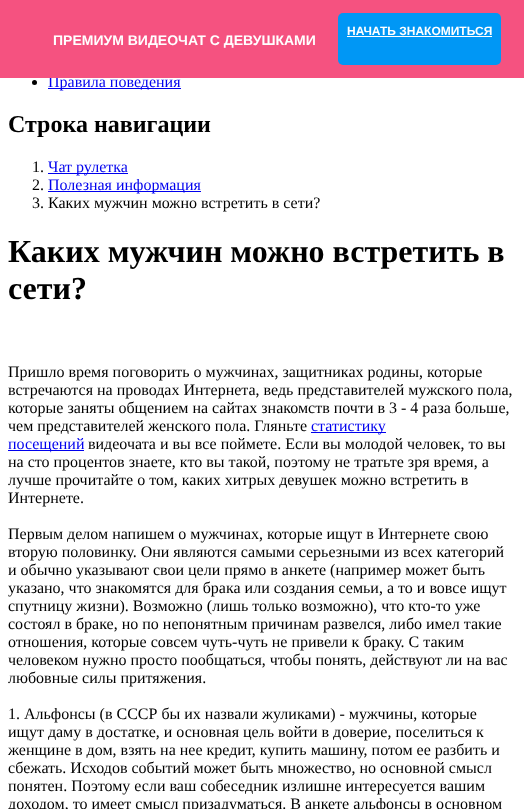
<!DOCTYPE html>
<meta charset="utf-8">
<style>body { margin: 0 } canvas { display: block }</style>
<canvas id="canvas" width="524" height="809"></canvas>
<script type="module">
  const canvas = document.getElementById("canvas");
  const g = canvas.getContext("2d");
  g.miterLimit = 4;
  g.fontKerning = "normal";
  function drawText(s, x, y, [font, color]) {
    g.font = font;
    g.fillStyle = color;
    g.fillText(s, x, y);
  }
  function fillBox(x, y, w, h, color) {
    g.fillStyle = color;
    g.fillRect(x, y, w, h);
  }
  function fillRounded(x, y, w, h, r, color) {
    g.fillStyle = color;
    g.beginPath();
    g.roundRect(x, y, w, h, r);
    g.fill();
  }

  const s1 = ["16px Liberation Serif", "#0000EE"];
  const s2 = ["bold 12px Liberation Sans", "#FFFFFF"];
  const s3 = ["bold 14px Liberation Sans", "#FFFFFF"];
  const s4 = ["bold 24px Liberation Serif", "#000000"];
  const s5 = ["16px Liberation Serif", "#000000"];
  const s6 = ["bold 32px Liberation Serif", "#000000"];

  fillBox(0, 0, 524, 809, "#FFFFFF");
  fillBox(48, 88, 133, 1, "#0000EE");
  drawText("Правила поведения", 48, 87, s1);
  fillBox(0, 0, 524, 78, "#F55280");
  fillRounded(338, 13, 163, 52, 5, "#0097F5");
  drawText("НАЧАТЬ ЗНАКОМИТЬСЯ", 347, 35, s2);
  fillBox(347, 36, 145, 1, "#FFFFFF");
  drawText("ПРЕМИУМ ВИДЕОЧАТ С ДЕВУШКАМИ", 53, 45, s3);
  g.fillStyle = "#000000";
  g.beginPath();
  g.arc(34.5, 82.5, 2.5, 0, Math.PI * 2);
  g.fill();
  drawText("Строка навигации", 8, 132, s4);
  drawText("1.", 32, 172, s5);
  fillBox(48, 173, 80, 1, "#0000EE");
  drawText("Чат рулетка", 48, 172, s1);
  drawText("2.", 32, 190, s5);
  fillBox(48, 191, 153, 1, "#0000EE");
  drawText("Полезная информация", 48, 190, s1);
  drawText("3. Каких мужчин можно встретить в сети?", 32, 208, s5);
  drawText("Каких мужчин можно встретить в", 8, 262, s6);
  drawText("сети?", 8, 299, s6);
  drawText("Пришло время поговорить о мужчинах, защитниках родины, которые", 8, 377, s5);
  drawText("встречаются на проводах Интернета, ведь представителей мужского пола,", 8, 395, s5);
  drawText("которые заняты общением на сайтах знакомств почти в 3 - 4 раза больше,", 8, 413, s5);
  drawText("чем представителей женского пола. Гляньте", 8, 431, s5);
  fillBox(311, 432, 75, 1, "#0000EE");
  drawText("статистику", 311, 431, s1);
  fillBox(8, 450, 76, 1, "#0000EE");
  drawText("посещений", 8, 449, s1);
  drawText("видеочата и вы все поймете. Если вы молодой человек, то вы", 88, 449, s5);
  drawText("на сто процентов знаете, кто вы такой, поэтому не тратьте зря время, а", 8, 467, s5);
  drawText("лучше прочитайте о том, каких хитрых девушек можно встретить в", 8, 485, s5);
  drawText("Интернете.", 8, 503, s5);
  drawText("Первым делом напишем о мужчинах, которые ищут в Интернете свою", 8, 539, s5);
  drawText("вторую половинку. Они являются самыми серьезными из всех категорий", 8, 557, s5);
  drawText("и обычно указывают свои цели прямо в анкете (например может быть", 8, 575, s5);
  drawText("указано, что знакомятся для брака или создания семьи, а то и вовсе ищут", 8, 593, s5);
  drawText("спутницу жизни). Возможно (лишь только возможно), что кто-то уже", 8, 611, s5);
  drawText("состоял в браке, но по непонятным причинам развелся, либо имел такие", 8, 629, s5);
  drawText("отношения, которые совсем чуть-чуть не привели к браку. С таким", 8, 647, s5);
  drawText("человеком нужно просто пообщаться, чтобы понять, действуют ли на вас", 8, 665, s5);
  drawText("любовные силы притяжения.", 8, 683, s5);
  drawText("1. Альфонсы (в СССР бы их назвали жуликами) - мужчины, которые", 8, 719, s5);
  drawText("ищут даму в достатке, и основная цель войти в доверие, поселиться к", 8, 737, s5);
  drawText("женщине в дом, взять на нее кредит, купить машину, потом ее разбить и", 8, 755, s5);
  drawText("сбежать. Исходов событий может быть множество, но основной смысл", 8, 773, s5);
  drawText("понятен. Поэтому если ваш собеседник излишне интересуется вашим", 8, 791, s5);
  drawText("доходом, то имеет смысл призадуматься. В анкете альфонсы в основном", 8, 809, s5);
</script>
